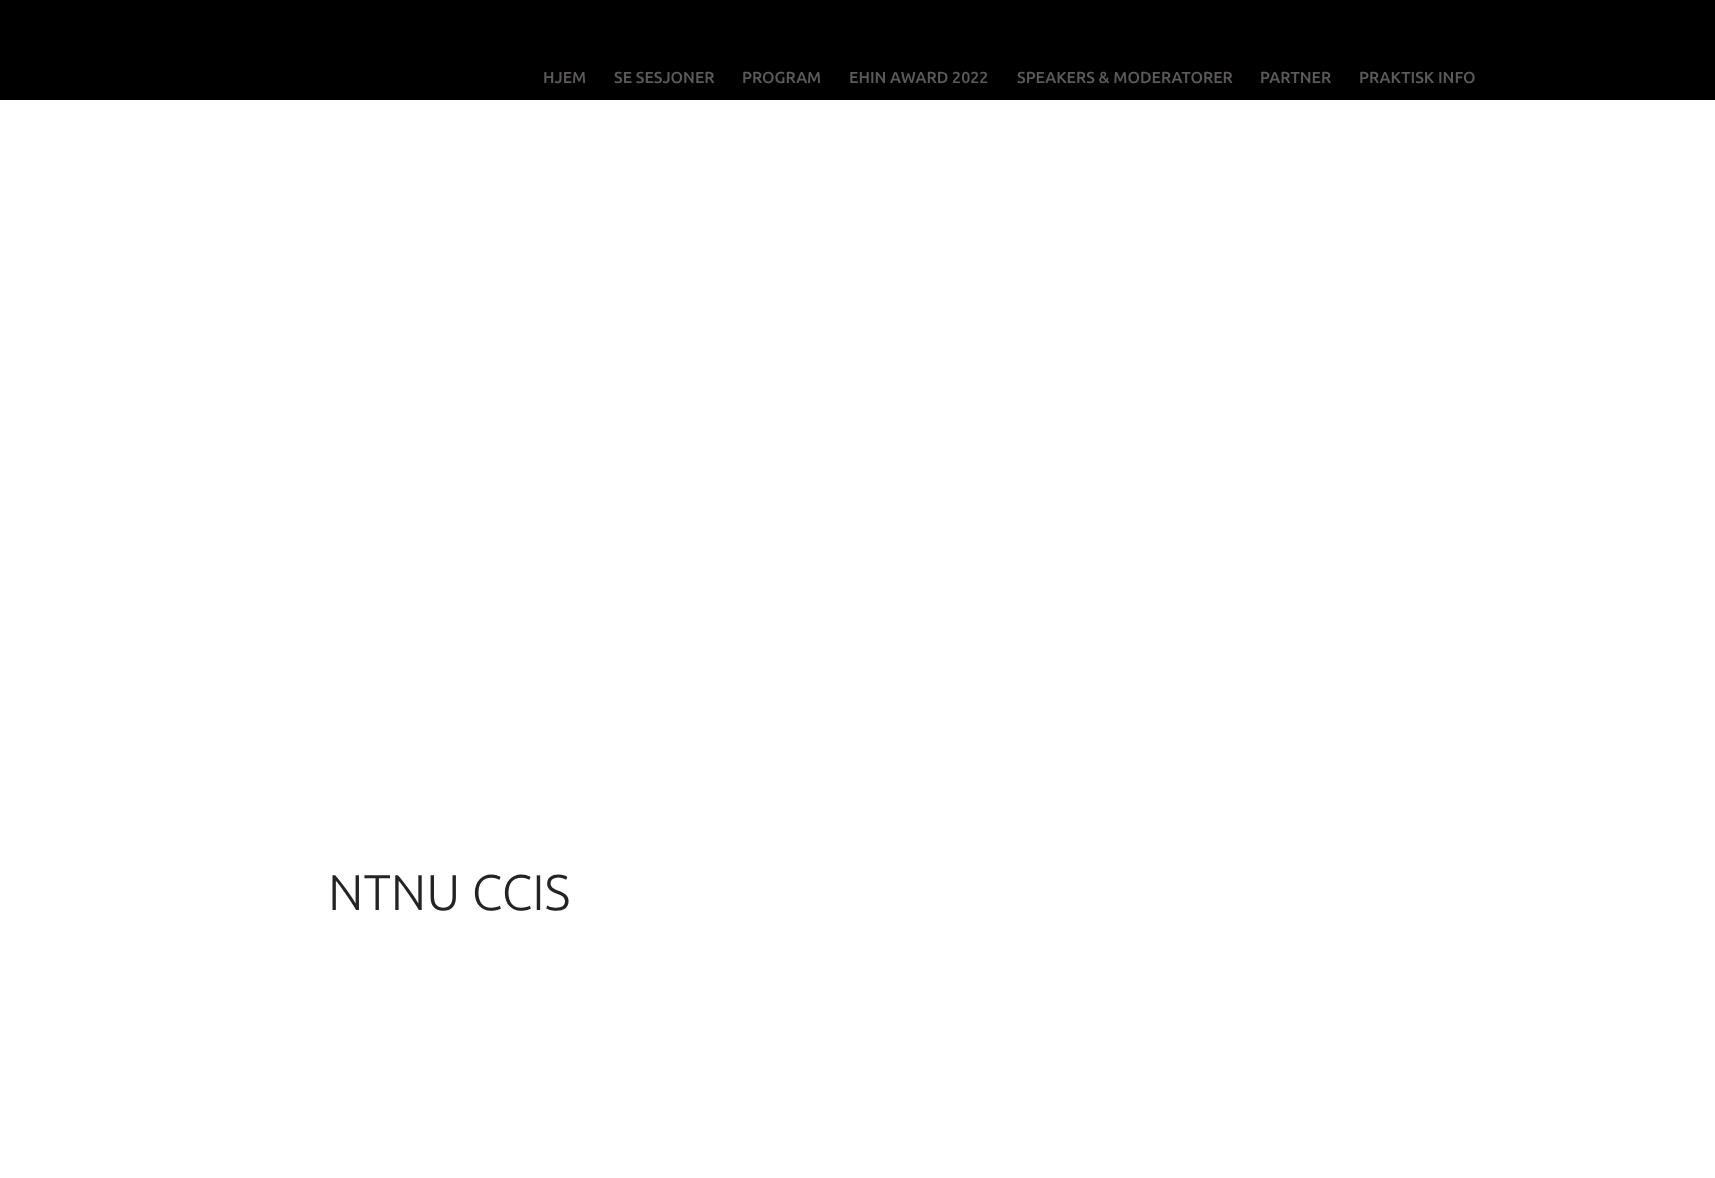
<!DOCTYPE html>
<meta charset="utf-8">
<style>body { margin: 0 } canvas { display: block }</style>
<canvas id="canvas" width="1715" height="1178"></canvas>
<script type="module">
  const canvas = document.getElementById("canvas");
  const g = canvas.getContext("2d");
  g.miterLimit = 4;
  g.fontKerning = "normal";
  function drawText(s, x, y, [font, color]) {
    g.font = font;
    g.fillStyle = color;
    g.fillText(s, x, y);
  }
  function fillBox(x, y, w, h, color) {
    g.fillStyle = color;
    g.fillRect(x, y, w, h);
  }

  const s1 = ["500 16px Ubuntu", "#5B5959"];
  const s2 = ["300 50px Ubuntu", "#242424"];

  fillBox(0, 0, 1715, 1178, "#FFFFFF");
  fillBox(0, 0, 1715, 100, "#000000");
  drawText("HJEM", 543, 83, s1);
  drawText("SE SESJONER", 614, 83, s1);
  drawText("PROGRAM", 742, 83, s1);
  drawText("EHIN AWARD 2022", 849, 83, s1);
  drawText("SPEAKERS & MODERATORER", 1017, 83, s1);
  drawText("PARTNER", 1260, 83, s1);
  drawText("PRAKTISK INFO", 1359, 83, s1);
  drawText("NTNU CCIS", 328, 910, s2);
</script>
